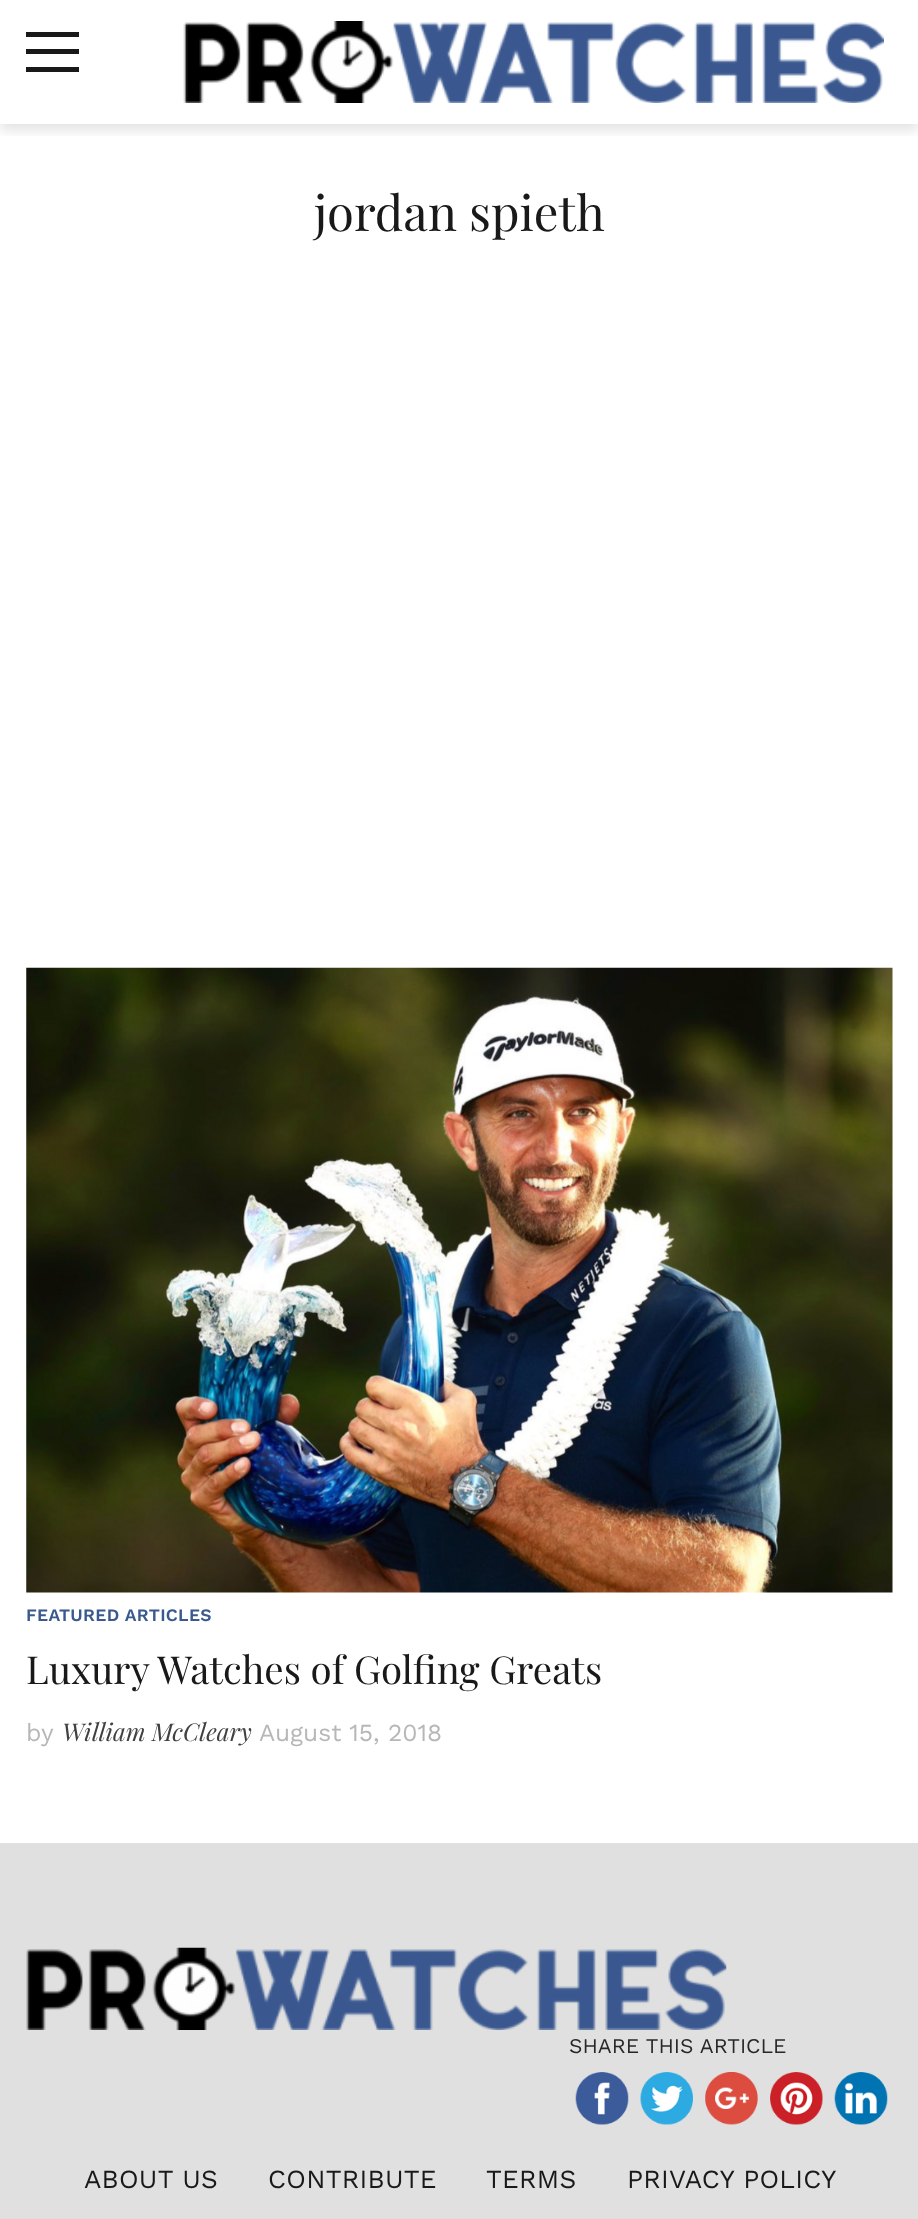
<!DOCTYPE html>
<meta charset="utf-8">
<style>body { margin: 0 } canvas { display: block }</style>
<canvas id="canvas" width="918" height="2219"></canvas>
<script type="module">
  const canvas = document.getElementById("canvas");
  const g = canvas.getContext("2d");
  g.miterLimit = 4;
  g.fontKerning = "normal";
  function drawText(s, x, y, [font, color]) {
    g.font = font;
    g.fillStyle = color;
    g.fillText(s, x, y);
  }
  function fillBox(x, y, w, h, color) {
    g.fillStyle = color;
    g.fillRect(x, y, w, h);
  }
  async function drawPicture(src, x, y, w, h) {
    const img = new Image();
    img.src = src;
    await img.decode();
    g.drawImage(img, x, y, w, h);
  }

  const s1 = ["49px Playfair Display", "#191919"];
  const s2 = ["600 17.5px Work Sans", "#3A598F"];
  const s3 = ["38.5px Playfair Display", "#191919"];
  const s4 = ["24.5px Work Sans", "#B7B7B7"];
  const s5 = ["italic 24.5px Playfair Display", "#404040"];
  const s6 = ["21px Work Sans", "#272727"];
  const s7 = ["26.25px Work Sans", "#191919"];

  fillBox(0, 0, 918, 2219, "#FFFFFF");
  g.save();
  g.beginPath();
  g.rect(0, 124, 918, 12);
  g.clip();
  g.fillStyle = "rgba(0, 0, 0, 0.1)";
  g.filter = "blur(6px)";
  g.beginPath();
  g.rect(0, 7, 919, 124);
  g.fill();
  g.filter = "none";
  g.restore();
  fillBox(26, 49, 53, 5, "#191919");
  fillBox(26, 32, 53, 5, "#191919");
  fillBox(26, 67, 53, 5, "#191919");
  await drawPicture("pic1.png", 183, 21, 701, 82);
  drawText("jordan spieth", 314, 231, s1);
  await drawPicture("pic2.png", 26, 967, 867, 626);
  g.letterSpacing = "0.3px";
  drawText("FEATURED ARTICLES", 26, 1621, s2);
  g.letterSpacing = "0px";
  drawText("Luxury Watches of Golfing Greats", 26, 1684, s3);
  drawText("by", 26, 1741, s4);
  drawText("William McCleary", 62, 1741, s5);
  drawText("August 15, 2018", 259, 1741, s4);
  fillBox(0, 1843, 918, 376, "#E0E0E0");
  await drawPicture("pic3.png", 26, 1947, 701, 83);
  drawText("SHARE THIS ARTICLE", 569, 2053, s6);
  await drawPicture("pic4.png", 575, 2072, 54, 53);
  await drawPicture("pic5.png", 640, 2072, 53, 53);
  await drawPicture("pic6.png", 705, 2072, 53, 53);
  await drawPicture("pic7.png", 770, 2072, 53, 53);
  await drawPicture("pic8.png", 834, 2072, 54, 53);
  g.letterSpacing = "0.25px";
  drawText("ABOUT US", 84, 2188, s7);
  drawText("CONTRIBUTE", 268, 2188, s7);
  drawText("TERMS", 486, 2188, s7);
  drawText("PRIVACY POLICY", 627, 2188, s7);
</script>
